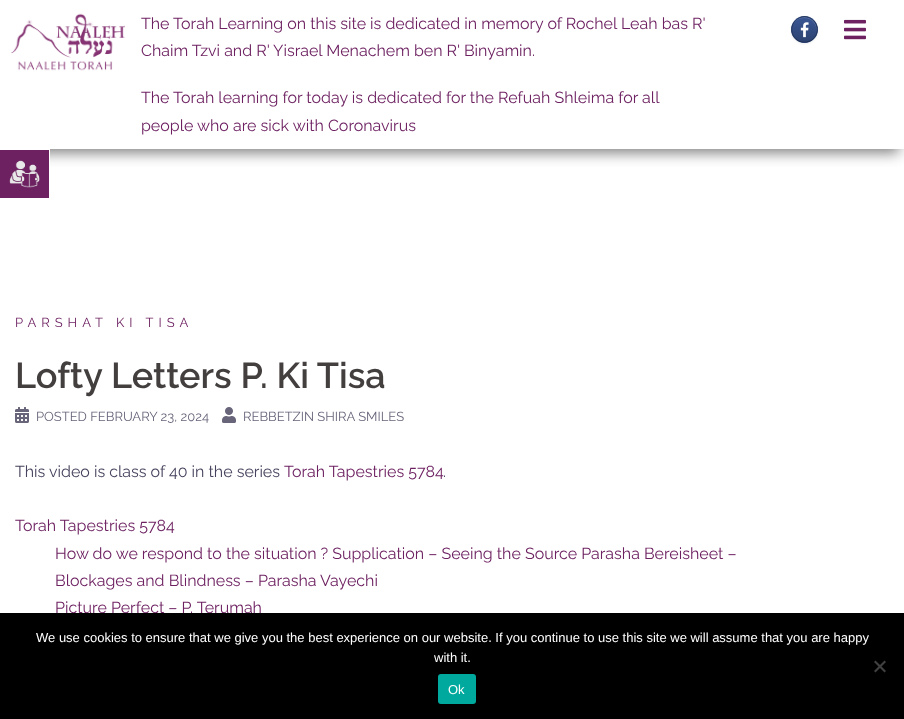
<!DOCTYPE html>
<meta charset="utf-8">
<style>body { margin: 0 } canvas { display: block }</style>
<canvas id="canvas" width="904" height="719"></canvas>
<script type="module">
  const canvas = document.getElementById("canvas");
  const g = canvas.getContext("2d");
  g.miterLimit = 4;
  g.fontKerning = "normal";
  function drawText(s, x, y, [font, color]) {
    g.font = font;
    g.fillStyle = color;
    g.fillText(s, x, y);
  }
  function fillBox(x, y, w, h, color) {
    g.fillStyle = color;
    g.fillRect(x, y, w, h);
  }
  function fillRounded(x, y, w, h, r, color) {
    g.fillStyle = color;
    g.beginPath();
    g.roundRect(x, y, w, h, r);
    g.fill();
  }
  async function drawPicture(src, x, y, w, h) {
    const img = new Image();
    img.src = src;
    await img.decode();
    g.drawImage(img, x, y, w, h);
  }
  let gradient;

  const s1 = ["16px Raleway", "#6D2161"];
  const s2 = ["13px Raleway", "#6D2161"];
  const s3 = ["600 36px Raleway", "#443F3F"];
  const s4 = ["13px Raleway", "#68647A"];
  const s5 = ["16px Raleway", "#47425D"];
  const s6 = ["13px Liberation Sans", "#FFFFFF"];

  fillBox(0, 0, 904, 719, "#FFFFFF");
  g.save();
  g.beginPath();
  g.rect(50, 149, 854, 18);
  g.clip();
  g.fillStyle = "#808080";
  g.filter = "blur(7px)";
  g.beginPath();
  g.rect(5, 14, 894, 139);
  g.fill();
  g.filter = "none";
  g.restore();
  await drawPicture("pic1.png", 11, 13, 115, 58);
  drawText("The Torah Learning on this site is dedicated in memory of Rochel Leah bas R'", 141, 29, s1);
  drawText("Chaim Tzvi and R' Yisrael Menachem ben R' Binyamin.", 141, 56, s1);
  drawText("The Torah learning for today is dedicated for the Refuah Shleima for all", 141, 103, s1);
  drawText("people who are sick with Coronavirus", 141, 131, s1);
  g.fillStyle = "rgba(0, 0, 0, 0.07)";
  g.filter = "blur(1px)";
  g.beginPath();
  g.roundRect(791, 17, 27, 27, 13.5);
  g.fill();
  g.filter = "none";
  g.save();
  g.beginPath();
  g.roundRect(791, 16, 27, 27, 13.5);
  g.clip();
  gradient = g.createLinearGradient(792, 17, 792, -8);
  gradient.addColorStop(0, "#2C4270");
  gradient.addColorStop(1, "#3A5795");
  g.fillStyle = gradient;
  g.fillRect(791, 16, 27, 1);
  gradient = g.createLinearGradient(792, 42, 792, 17);
  gradient.addColorStop(0, "#2C4270");
  gradient.addColorStop(1, "#3A5795");
  g.fillStyle = gradient;
  g.fillRect(791, 17, 27, 25);
  gradient = g.createLinearGradient(792, 67, 792, 42);
  gradient.addColorStop(0, "#2C4270");
  gradient.addColorStop(1, "#3A5795");
  g.fillStyle = gradient;
  g.fillRect(791, 42, 27, 1);
  g.restore();
  g.fillStyle = "rgba(255, 255, 255, 0.2)";
  g.beginPath();
  g.moveTo(804, 18);
  g.bezierCurveTo(813.5, 18, 817.5, 26, 816.5, 33);
  g.bezierCurveTo(820, 19.5, 802, 10.5, 794, 22.5);
  g.bezierCurveTo(792.5, 24.5, 792, 27.5, 792, 30);
  g.bezierCurveTo(792, 24, 796, 18, 804, 18);
  g.closePath();
  g.fill();
  g.beginPath();
  g.moveTo(795.5, 20.5);
  g.bezierCurveTo(800.5, 15.5, 808.5, 15.5, 813.5, 20.5);
  g.strokeStyle = "#273B65";
  g.stroke();
  g.beginPath();
  g.moveTo(813.5, 20.5);
  g.bezierCurveTo(818.5, 25.5, 818.5, 33.5, 813.5, 38.5);
  g.strokeStyle = "#25375E";
  g.stroke();
  g.beginPath();
  g.moveTo(813.5, 38.5);
  g.bezierCurveTo(808.5, 43.5, 800.5, 43.5, 795.5, 38.5);
  g.strokeStyle = "#203053";
  g.stroke();
  g.beginPath();
  g.moveTo(795.5, 38.5);
  g.bezierCurveTo(790.5, 33.5, 790.5, 25.5, 795.5, 20.5);
  g.strokeStyle = "#25375E";
  g.stroke();
  await drawPicture("pic2.png", 800, 22, 9, 16);
  await drawPicture("pic3.png", 844, 19, 22, 21);
  fillBox(0, 150, 49, 48, "#6D2161");
  fillBox(0, 149, 50, 1, "#FFFFFF");
  fillBox(49, 149, 1, 18, "#FFFFFF");
  await drawPicture("pic4.png", 9, 160, 31, 28);
  g.letterSpacing = "5px";
  drawText("PARSHAT KI TISA", 15, 327, s2);
  g.letterSpacing = "0px";
  drawText("Lofty Letters P. Ki Tisa", 15, 388, s3);
  await drawPicture("pic5.png", 15, 407, 14, 16);
  drawText("POSTED FEBRUARY 23, 2024", 36, 421, s4);
  await drawPicture("pic6.png", 222, 407, 14, 16);
  drawText("REBBETZIN SHIRA SMILES", 243, 421, s4);
  drawText("This video is class of 40 in the series", 15, 477, s5);
  drawText("Torah Tapestries 5784", 284, 477, s1);
  drawText(".", 443, 477, s5);
  drawText("Torah Tapestries 5784", 15, 531, s1);
  drawText("How do we respond to the situation ? Supplication – Seeing the Source Parasha Bereisheet –", 55, 559, s1);
  drawText("Blockages and Blindness – Parasha Vayechi", 55, 586, s1);
  drawText("Picture Perfect – P. Terumah", 55, 613, s1);
  fillBox(0, 613, 904, 106, "#000000");
  drawText("We use cookies to ensure that we give you the best experience on our website. If you continue to use this site we will assume that you are happy", 36, 642, s6);
  drawText("with it.", 434, 662, s6);
  g.fillStyle = "#404040";
  g.beginPath();
  g.moveTo(884.5, 660.5);
  g.lineTo(886, 662);
  g.lineTo(875.5, 672.5);
  g.lineTo(874, 671);
  g.closePath();
  g.fill();
  g.beginPath();
  g.moveTo(874, 662);
  g.lineTo(875.5, 660.5);
  g.lineTo(886, 671);
  g.lineTo(884.5, 672.5);
  g.closePath();
  g.fill();
  fillRounded(438, 674, 38, 30, 3, "#00A99D");
  drawText("Ok", 448, 694, s6);
</script>
